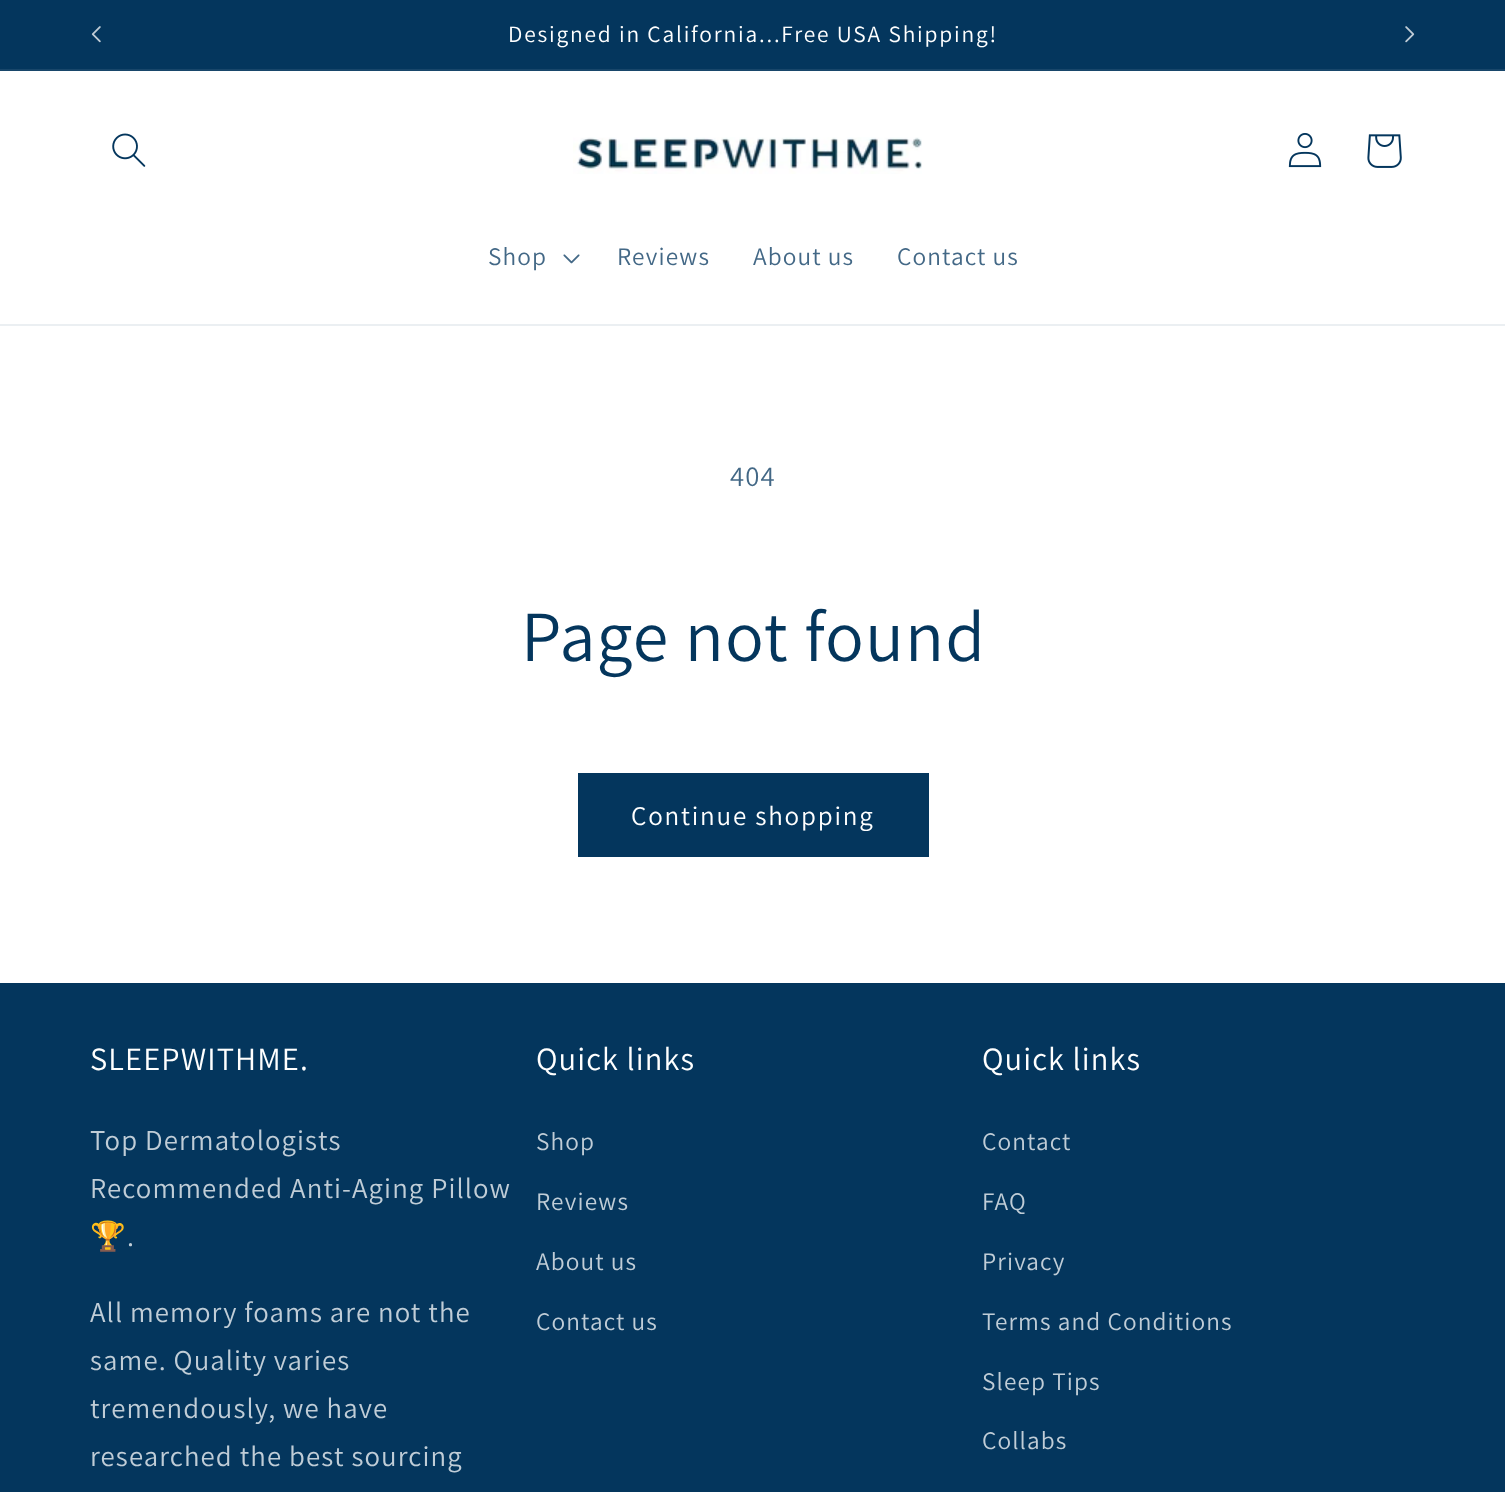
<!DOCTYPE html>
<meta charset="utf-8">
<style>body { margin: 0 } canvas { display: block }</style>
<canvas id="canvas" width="1505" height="1492"></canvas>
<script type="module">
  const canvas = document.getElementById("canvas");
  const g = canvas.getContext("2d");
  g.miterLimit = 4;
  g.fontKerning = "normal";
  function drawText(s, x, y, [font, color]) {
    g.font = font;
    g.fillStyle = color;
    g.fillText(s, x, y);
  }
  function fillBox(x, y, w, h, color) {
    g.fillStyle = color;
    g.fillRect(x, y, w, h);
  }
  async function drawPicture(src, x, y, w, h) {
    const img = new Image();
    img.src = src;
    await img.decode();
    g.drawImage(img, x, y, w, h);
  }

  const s1 = ["23.4px Assistant", "#FFFFFF"];
  const s2 = ["25.25px Assistant", "#436886"];
  const s3 = ["28.75px Assistant", "#436886"];
  const s4 = ["72px Assistant", "#04365D"];
  const s5 = ["27px Assistant", "#FFFFFF"];
  const s6 = ["32.5px Assistant", "#FFFFFF"];
  const s7 = ["28.75px Assistant", "#C0CDD7"];
  const s8 = ["28.75px Noto Color Emoji", "#C0CDD7"];
  const s9 = ["25.25px Assistant", "#C0CDD7"];

  fillBox(0, 0, 1505, 1492, "#FFFFFF");
  fillBox(0, 0, 1505, 69, "#04365D");
  fillBox(0, 69, 1505, 2, "#18466A");
  await drawPicture("pic1.png", 91, 26, 10, 17);
  g.letterSpacing = "1.8px";
  drawText("Designed in California...Free USA Shipping!", 508, 42, s1);
  await drawPicture("pic2.png", 1405, 26, 10, 17);
  fillBox(0, 324, 1505, 2, "#EBEFF2");
  await drawPicture("pic3.png", 112, 133, 34, 34);
  await drawPicture("pic4.png", 573, 137, 349, 37);
  await drawPicture("pic5.png", 1288, 133, 34, 35);
  await drawPicture("pic6.png", 1367, 134, 35, 34);
  g.letterSpacing = "1.1px";
  drawText("Shop", 488, 265, s2);
  await drawPicture("pic7.png", 563, 254, 17, 10);
  drawText("Reviews", 617, 265, s2);
  drawText("About us", 753, 265, s2);
  drawText("Contact us", 897, 265, s2);
  drawText("404", 730, 486, s3);
  drawText("Page not found", 521, 661, s4);
  fillBox(578, 773, 351, 84, "#04365D");
  g.letterSpacing = "1.8px";
  drawText("Continue shopping", 631, 825, s5);
  fillBox(0, 983, 1505, 509, "#04365D");
  g.letterSpacing = "1.1px";
  drawText("SLEEPWITHME.", 90, 1070, s6);
  drawText("Top Dermatologists", 90, 1150, s7);
  drawText("Recommended Anti-Aging Pillow", 90, 1198, s7);
  drawText("🏆", 90, 1246, s8);
  drawText(".", 127, 1246, s7);
  drawText("All memory foams are not the", 90, 1322, s7);
  drawText("same. Quality varies", 90, 1370, s7);
  drawText("tremendously, we have", 90, 1418, s7);
  drawText("researched the best sourcing", 90, 1466, s7);
  drawText("Quick links", 536, 1070, s6);
  drawText("Shop", 536, 1150, s9);
  drawText("Reviews", 536, 1210, s9);
  drawText("About us", 536, 1270, s9);
  drawText("Contact us", 536, 1330, s9);
  drawText("Quick links", 982, 1070, s6);
  drawText("Contact", 982, 1150, s9);
  drawText("FAQ", 982, 1210, s9);
  drawText("Privacy", 982, 1270, s9);
  drawText("Terms and Conditions", 982, 1330, s9);
  drawText("Sleep Tips", 982, 1390, s9);
  drawText("Collabs", 982, 1449, s9);
</script>
